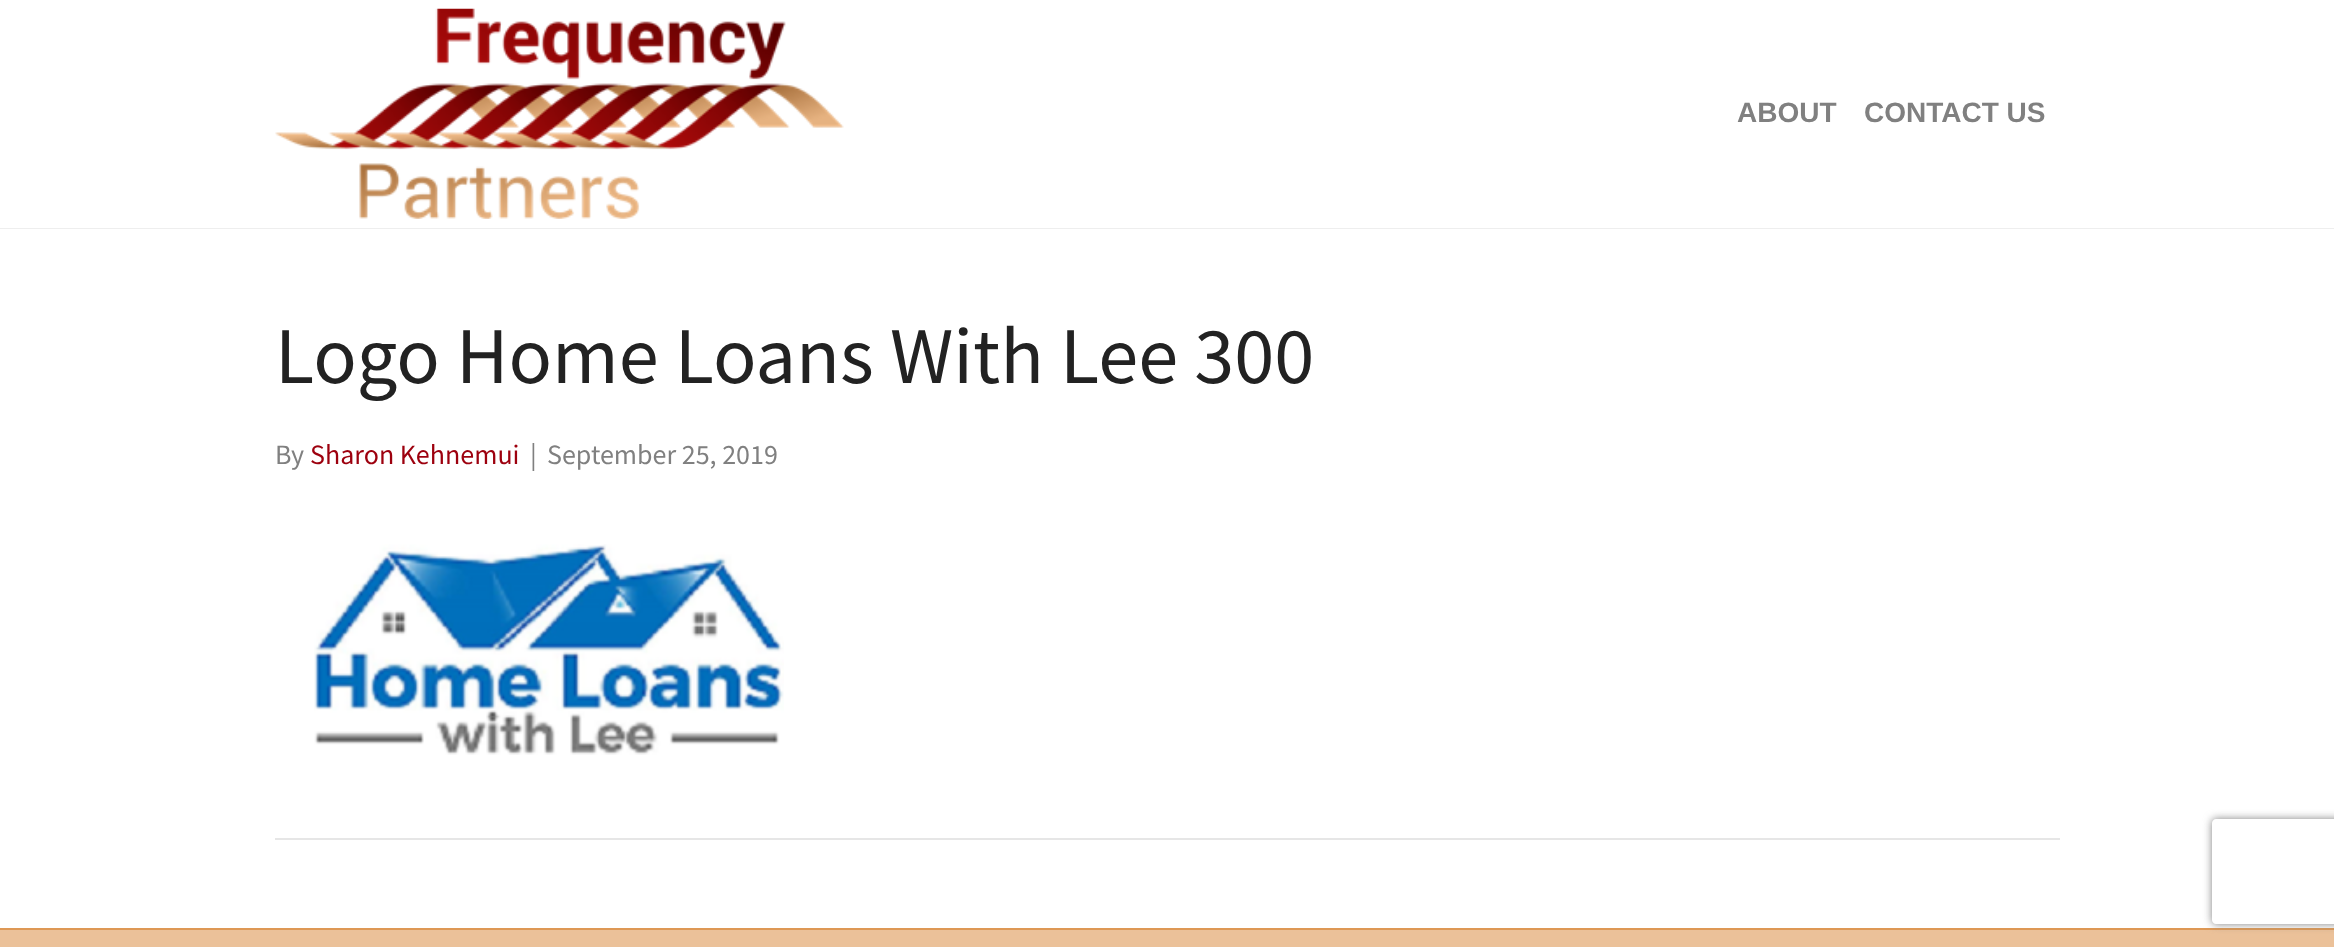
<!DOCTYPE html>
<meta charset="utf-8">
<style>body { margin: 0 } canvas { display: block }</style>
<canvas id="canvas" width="2334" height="947"></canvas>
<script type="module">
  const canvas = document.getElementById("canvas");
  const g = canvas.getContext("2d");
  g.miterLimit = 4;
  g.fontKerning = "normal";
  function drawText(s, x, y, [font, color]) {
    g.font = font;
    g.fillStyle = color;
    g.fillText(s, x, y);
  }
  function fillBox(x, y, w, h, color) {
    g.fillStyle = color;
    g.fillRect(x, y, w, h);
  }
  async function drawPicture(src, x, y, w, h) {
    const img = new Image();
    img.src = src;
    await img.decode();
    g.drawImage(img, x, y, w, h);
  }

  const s1 = ["bold 28px Liberation Sans", "#808080"];
  const s2 = ["80.5px Source Sans Pro", "#222222"];
  const s3 = ["28px Source Sans Pro", "#808080"];
  const s4 = ["28px Source Sans Pro", "#9D000E"];

  fillBox(0, 0, 2334, 947, "#FFFFFF");
  fillBox(0, 228, 2334, 1, "#EEEEEE");
  await drawPicture("pic1.png", 275, 8, 569, 211);
  drawText("ABOUT", 1737, 122, s1);
  drawText("CONTACT US", 1864, 122, s1);
  drawText("Logo Home Loans With Lee 300", 275, 383, s2);
  drawText("By", 275, 464, s3);
  drawText("Sharon Kehnemui", 310, 464, s4);
  drawText("|", 530, 464, s3);
  drawText("September 25, 2019", 547, 464, s3);
  await drawPicture("pic2.png", 314, 544, 470, 211);
  fillBox(275, 838, 1785, 2, "#E6E6E6");
  fillBox(0, 930, 2334, 17, "#EBC199");
  fillBox(0, 928, 2334, 2, "#DE9855");
  g.save();
  g.beginPath();
  g.moveTo(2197, 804);
  g.lineTo(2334, 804);
  g.lineTo(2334, 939);
  g.lineTo(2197, 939);
  g.closePath();
  g.moveTo(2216, 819);
  g.lineTo(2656, 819);
  g.bezierCurveTo(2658, 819, 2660, 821, 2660, 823);
  g.lineTo(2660, 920);
  g.bezierCurveTo(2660, 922, 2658, 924, 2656, 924);
  g.lineTo(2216, 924);
  g.bezierCurveTo(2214, 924, 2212, 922, 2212, 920);
  g.lineTo(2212, 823);
  g.bezierCurveTo(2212, 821, 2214, 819, 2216, 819);
  g.closePath();
  g.clip("evenodd");
  g.fillStyle = "#808080";
  g.filter = "blur(4.5px)";
  g.beginPath();
  g.roundRect(2212, 819, 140, 105, 4);
  g.fill();
  g.filter = "none";
  g.restore();
</script>
